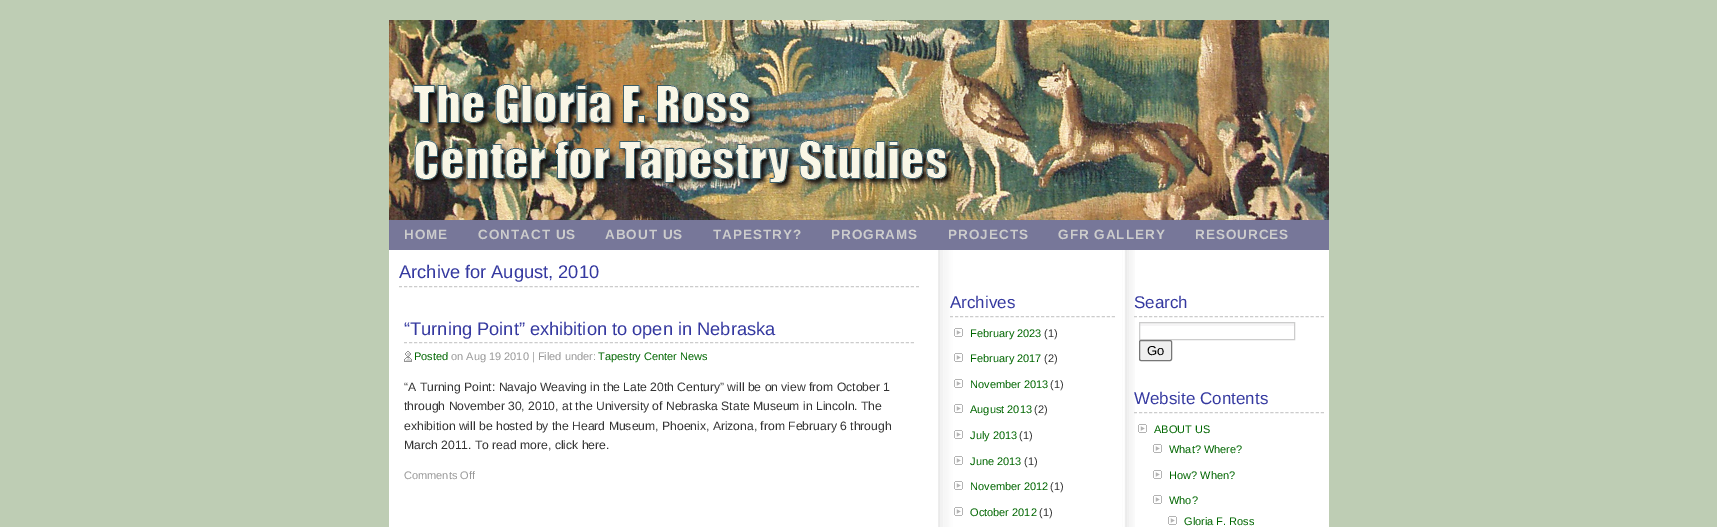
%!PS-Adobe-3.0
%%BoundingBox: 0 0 1717 527
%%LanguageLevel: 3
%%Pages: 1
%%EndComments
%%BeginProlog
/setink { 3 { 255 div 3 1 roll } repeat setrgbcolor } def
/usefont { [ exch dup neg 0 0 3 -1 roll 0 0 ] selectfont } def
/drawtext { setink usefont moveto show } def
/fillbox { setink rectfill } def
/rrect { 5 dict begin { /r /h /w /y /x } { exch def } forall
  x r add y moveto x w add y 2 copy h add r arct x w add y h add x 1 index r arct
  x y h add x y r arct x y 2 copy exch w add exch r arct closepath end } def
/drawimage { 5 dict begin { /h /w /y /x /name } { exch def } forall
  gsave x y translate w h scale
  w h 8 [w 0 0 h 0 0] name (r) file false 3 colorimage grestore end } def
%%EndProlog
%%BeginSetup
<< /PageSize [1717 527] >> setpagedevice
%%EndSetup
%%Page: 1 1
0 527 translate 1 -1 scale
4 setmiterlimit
0 0 1717 527 190 205 180 fillbox
389 250 940 277 255 255 255 fillbox
(assets/img1.rgb) 938 250 197 277 drawimage
(assets/img2.rgb) 389 20 940 200 drawimage
389 220 940 30 119 119 153 fillbox
/LiberationSans-Bold 13.5 usefont
204 204 204 setink
404 239 moveto 1 0 (HOME) ashow
478 239 moveto 1 0 (CONTACT US) ashow
605 239 moveto 1 0 (ABOUT US) ashow
713 239 moveto 1 0 (TAPESTRY?) ashow
831 239 moveto 1 0 (PROGRAMS) ashow
948 239 moveto 1 0 (PROJECTS) ashow
1058 239 moveto 1 0 (GFR GALLERY) ashow
1195 239 moveto 1 0 (RESOURCES) ashow
[3 2.02] 0 setdash
399 286.5 moveto 919 286.5 lineto stroke
(Archive for August, 2010) 399 278 /LiberationSans-Regular 18.25 53 57 160 drawtext
204 204 204 setink
404 342.5 moveto 914 342.5 lineto stroke
(“Turning Point” exhibition to open in Nebraska) 404 335 /LiberationSans-Regular 18.25 53 57 160 drawtext
(assets/img3.rgb) 404 351 8 11 drawimage
(Posted) 414 360 /LiberationSans-Regular 11 0 102 0 drawtext
(on Aug 19 2010 | Filed under:) 451 360 /LiberationSans-Regular 11 153 153 153 drawtext
(Tapestry Center News) 598 360 /LiberationSans-Regular 11 0 102 0 drawtext
(“A Turning Point: Navajo Weaving in the Late 20th Century” will be on view from October 1) 404 391 /LiberationSans-Regular 12.15 51 51 51 drawtext
(through November 30, 2010, at the University of Nebraska State Museum in Lincoln. The) 404 410 /LiberationSans-Regular 12.15 51 51 51 drawtext
(exhibition will be hosted by the Heard Museum, Phoenix, Arizona, from February 6 through) 404 430 /LiberationSans-Regular 12.15 51 51 51 drawtext
(March 2011. To read more, click here.) 404 449 /LiberationSans-Regular 12.15 51 51 51 drawtext
(Comments Off) 404 479 /LiberationSans-Regular 11 153 153 153 drawtext
204 204 204 setink
[3 2.06] 0 setdash
950 316.5 moveto 1115 316.5 lineto stroke
(Archives) 950 308 /LiberationSans-Regular 17 53 57 160 drawtext
(assets/img4.rgb) 954 328 9 9 drawimage
(February 2023) 970 337 /LiberationSans-Regular 11 0 102 0 drawtext
(\(1\)) 1044 337 /LiberationSans-Regular 11 51 51 51 drawtext
(assets/img4.rgb) 954 353 9 9 drawimage
(February 2017) 970 362 /LiberationSans-Regular 11 0 102 0 drawtext
(\(2\)) 1044 362 /LiberationSans-Regular 11 51 51 51 drawtext
(assets/img4.rgb) 954 379 9 9 drawimage
(November 2013) 970 388 /LiberationSans-Regular 11 0 102 0 drawtext
(\(1\)) 1050 388 /LiberationSans-Regular 11 51 51 51 drawtext
(assets/img4.rgb) 954 404 9 9 drawimage
(August 2013) 970 413 /LiberationSans-Regular 11 0 102 0 drawtext
(\(2\)) 1034 413 /LiberationSans-Regular 11 51 51 51 drawtext
(assets/img4.rgb) 954 430 9 9 drawimage
(July 2013) 970 439 /LiberationSans-Regular 11 0 102 0 drawtext
(\(1\)) 1019 439 /LiberationSans-Regular 11 51 51 51 drawtext
(assets/img4.rgb) 954 456 9 9 drawimage
(June 2013) 970 465 /LiberationSans-Regular 11 0 102 0 drawtext
(\(1\)) 1024 465 /LiberationSans-Regular 11 51 51 51 drawtext
(assets/img4.rgb) 954 481 9 9 drawimage
(November 2012) 970 490 /LiberationSans-Regular 11 0 102 0 drawtext
(\(1\)) 1050 490 /LiberationSans-Regular 11 51 51 51 drawtext
(assets/img4.rgb) 954 507 9 9 drawimage
(October 2012) 970 516 /LiberationSans-Regular 11 0 102 0 drawtext
(\(1\)) 1039 516 /LiberationSans-Regular 11 51 51 51 drawtext
204 204 204 setink
[3 2.05] 0 setdash
1134 316.5 moveto 1324 316.5 lineto stroke
(Search) 1134 308 /LiberationSans-Regular 17 53 57 160 drawtext
1139 323 156 3 246 245 246 fillbox
204 204 204 setink
[] 0 setdash
1139.5 322.5 155 17 rectstroke
239 239 239 setink
1139.5 340.5 32 20 1.5 rrect gsave fill grestore
118 118 118 setink
stroke
(Go) 1147 355 /LiberationSans-Regular 13 0 0 0 drawtext
204 204 204 setink
[3 2.05] 0 setdash
1134 412.5 moveto 1324 412.5 lineto stroke
(Website Contents) 1134 404 /LiberationSans-Regular 17 53 57 160 drawtext
(assets/img4.rgb) 1138 424 9 9 drawimage
(ABOUT US) 1154 433 /LiberationSans-Regular 11 0 102 0 drawtext
(assets/img4.rgb) 1153 444 9 9 drawimage
(What? Where?) 1169 453 /LiberationSans-Regular 11 0 102 0 drawtext
(assets/img4.rgb) 1153 470 9 9 drawimage
(How? When?) 1169 479 /LiberationSans-Regular 11 0 102 0 drawtext
(assets/img4.rgb) 1153 495 9 9 drawimage
(Who?) 1169 504 /LiberationSans-Regular 11 0 102 0 drawtext
(assets/img4.rgb) 1168 516 9 9 drawimage
(Gloria F. Ross) 1184 525 /LiberationSans-Regular 11 0 102 0 drawtext
showpage
%%EOF
